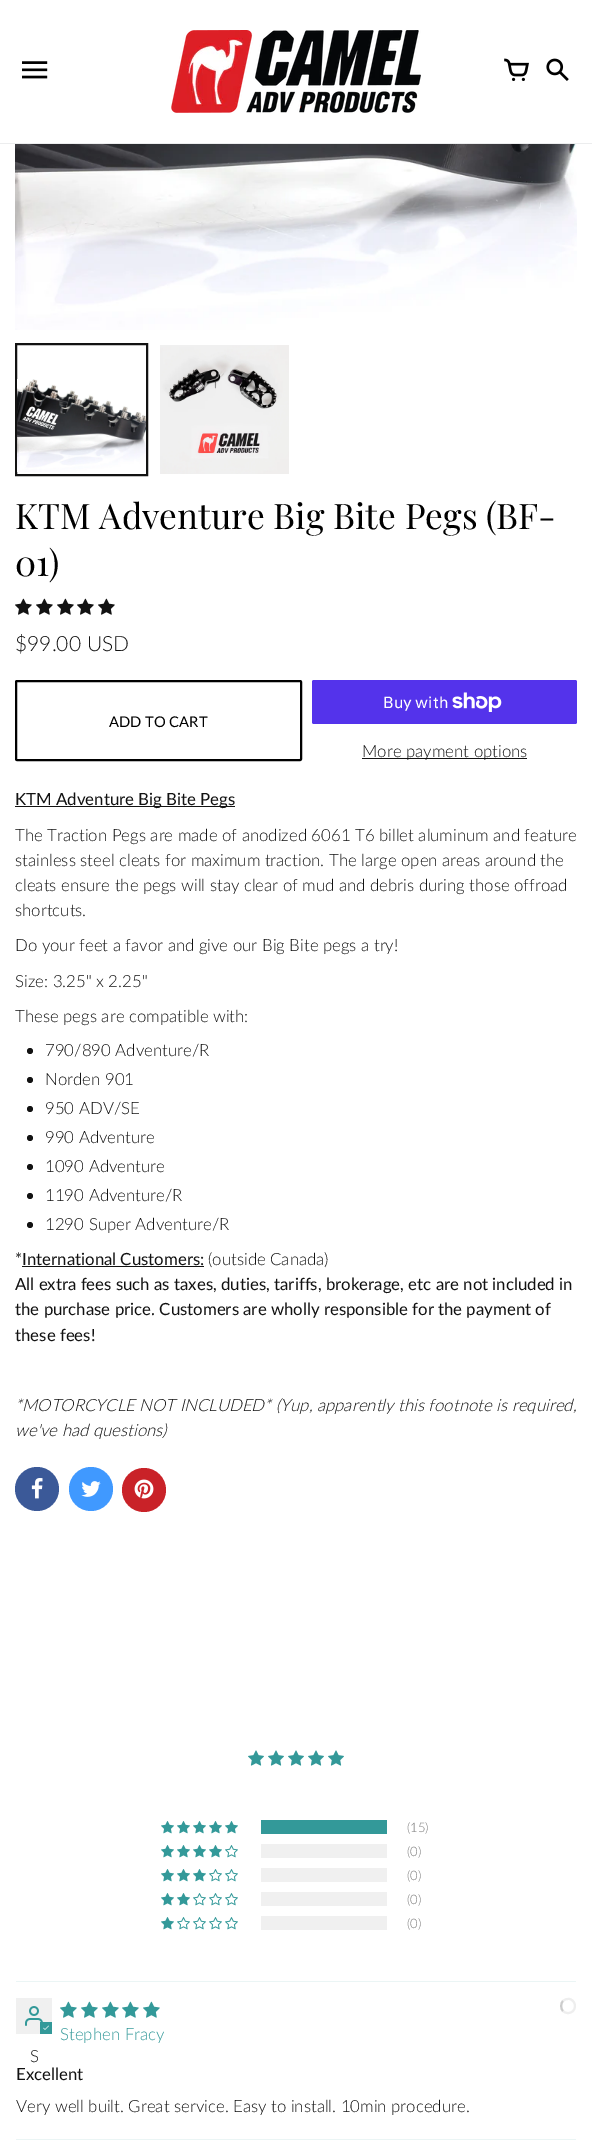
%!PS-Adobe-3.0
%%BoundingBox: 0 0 592 2156
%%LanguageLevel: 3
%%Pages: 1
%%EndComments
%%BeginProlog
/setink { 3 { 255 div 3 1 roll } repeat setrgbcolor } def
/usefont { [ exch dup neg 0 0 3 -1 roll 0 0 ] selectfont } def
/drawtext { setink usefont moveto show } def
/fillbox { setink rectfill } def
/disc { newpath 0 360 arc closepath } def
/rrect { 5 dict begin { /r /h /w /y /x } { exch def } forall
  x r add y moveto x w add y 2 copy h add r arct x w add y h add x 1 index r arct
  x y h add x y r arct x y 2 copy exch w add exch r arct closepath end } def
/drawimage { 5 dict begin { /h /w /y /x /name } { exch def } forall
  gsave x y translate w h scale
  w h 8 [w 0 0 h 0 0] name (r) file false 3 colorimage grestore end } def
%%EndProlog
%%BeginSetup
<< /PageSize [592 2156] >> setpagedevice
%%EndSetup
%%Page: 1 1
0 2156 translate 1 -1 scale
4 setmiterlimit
0 0 592 2156 255 255 255 fillbox
0 143 592 1 236 237 238 fillbox
(assets/img1.rgb) 22 61 26 18 drawimage
(assets/img2.rgb) 171 30 250 83 drawimage
(assets/img3.rgb) 504 58 25 23 drawimage
(assets/img4.rgb) 546 58 23 23 drawimage
(assets/img5.rgb) 15 144 562 186 drawimage
18 18 18 setink
2 setlinewidth
16 344 131 131 rectstroke
(assets/img6.rgb) 17 379 129 93 drawimage
(assets/img7.rgb) 160 345 129 129 drawimage
(KTM Adventure Big Bite Pegs \(BF-) 15 529 /PlayfairDisplay-Regular 35.25 0 0 0 drawtext
(01\)) 15 576 /PlayfairDisplay-Regular 35.25 0 0 0 drawtext
(assets/img8.rgb) 15 598 17 17 drawimage
(assets/img8.rgb) 36 598 17 17 drawimage
(assets/img8.rgb) 57 598 17 17 drawimage
(assets/img8.rgb) 77 598 17 17 drawimage
(assets/img8.rgb) 98 598 17 17 drawimage
($99.00 USD) 15 651 /Lato-Light 21 18 18 18 drawtext
0 0 0 setink
16 681 285 79 1 rrect stroke
(ADD TO CART) 109 727 /Lato-Regular 14.75 0 0 0 drawtext
84 51 235 setink
312 680 265 44 2 rrect fill
(Buy with) 383 708 /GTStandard-Regular 16 255 255 255 drawtext
(assets/img9.rgb) 452 692 50 20 drawimage
362 758 165 1 18 18 18 fillbox
(More payment options) 362 757 /Lato-Light 16.8 18 18 18 drawtext
15 806 220 1 18 18 18 fillbox
(KTM Adventure Big Bite Pegs) 15 805 /Lato-Regular 16.8 18 18 18 drawtext
(The Traction Pegs are made of anodized 6061 T6 billet aluminum and feature) 15 841 /Lato-Light 16.8 18 18 18 drawtext
(stainless steel cleats for maximum traction. The large open areas around the) 15 866 /Lato-Light 16.8 18 18 18 drawtext
(cleats ensure the pegs will stay clear of mud and debris during those offroad) 15 891 /Lato-Light 16.8 18 18 18 drawtext
(shortcuts.) 15 916 /Lato-Light 16.8 18 18 18 drawtext
(Do your feet a favor and give our Big Bite pegs a try!) 15 951 /Lato-Light 16.8 18 18 18 drawtext
(Size: 3.25" x 2.25") 15 987 /Lato-Light 16.8 18 18 18 drawtext
(These pegs are compatible with:) 15 1022 /Lato-Light 16.8 18 18 18 drawtext
30 1051 3 disc fill
(790/890 Adventure/R) 45 1056 /Lato-Light 16.8 18 18 18 drawtext
30 1080 3 disc fill
(Norden 901) 45 1085 /Lato-Light 16.8 18 18 18 drawtext
30 1109 3 disc fill
(950 ADV/SE) 45 1114 /Lato-Light 16.8 18 18 18 drawtext
30 1138 3 disc fill
(990 Adventure) 45 1143 /Lato-Light 16.8 18 18 18 drawtext
30 1167 3 disc fill
(1090 Adventure) 45 1172 /Lato-Light 16.8 18 18 18 drawtext
30 1196 3 disc fill
(1190 Adventure/R) 45 1201 /Lato-Light 16.8 18 18 18 drawtext
30 1225 3 disc fill
(1290 Super Adventure/R) 45 1230 /Lato-Light 16.8 18 18 18 drawtext
(*International Customers:) 15 1265 /Lato-Regular 16.8 18 18 18 drawtext
22 1266 182 1 18 18 18 fillbox
(\(outside Canada\)) 208 1265 /Lato-Light 16.8 18 18 18 drawtext
(All extra fees such as taxes, duties, tariffs, brokerage, etc are not included in) 15 1290 /Lato-Regular 16.8 18 18 18 drawtext
(the purchase price. Customers are wholly responsible for the payment of) 15 1315 /Lato-Regular 16.8 18 18 18 drawtext
(these fees!) 15 1341 /Lato-Regular 16.8 18 18 18 drawtext
(*MOTORCYCLE NOT INCLUDED* \(Yup, apparently this footnote is required,) 15 1411 /Lato-LightItalic 16.8 18 18 18 drawtext
(we've had questions\)) 15 1436 /Lato-LightItalic 16.8 18 18 18 drawtext
59 89 152 setink
37 1489 22 disc fill
(assets/img10.rgb) 31 1478 12 21 drawimage
64 153 255 setink
91 1489 22 disc fill
(assets/img11.rgb) 81 1481 20 16 drawimage
201 34 40 setink
144 1490 22 disc fill
(assets/img12.rgb) 134 1479 20 20 drawimage
(assets/img13.rgb) 248 1750 16 16 drawimage
(assets/img13.rgb) 268 1750 16 16 drawimage
(assets/img13.rgb) 288 1750 16 16 drawimage
(assets/img13.rgb) 308 1750 16 16 drawimage
(assets/img13.rgb) 328 1750 16 16 drawimage
(assets/img14.rgb) 161 1821 13 13 drawimage
(assets/img14.rgb) 177 1821 13 13 drawimage
(assets/img14.rgb) 193 1821 13 13 drawimage
(assets/img14.rgb) 209 1821 13 13 drawimage
(assets/img14.rgb) 225 1821 13 13 drawimage
261 1820 126 14 51 153 153 fillbox
(\(15\)) 407 1832 /Lato-Light 13 123 123 123 drawtext
(assets/img14.rgb) 161 1845 13 13 drawimage
(assets/img14.rgb) 177 1845 13 13 drawimage
(assets/img14.rgb) 193 1845 13 13 drawimage
(assets/img14.rgb) 209 1845 13 13 drawimage
(assets/img15.rgb) 225 1845 13 13 drawimage
261 1844 126 14 240 240 240 fillbox
(\(0\)) 407 1856 /Lato-Light 13 123 123 123 drawtext
(assets/img14.rgb) 161 1869 13 13 drawimage
(assets/img14.rgb) 177 1869 13 13 drawimage
(assets/img14.rgb) 193 1869 13 13 drawimage
(assets/img15.rgb) 209 1869 13 13 drawimage
(assets/img15.rgb) 225 1869 13 13 drawimage
261 1868 126 14 240 240 240 fillbox
(\(0\)) 407 1880 /Lato-Light 13 123 123 123 drawtext
(assets/img14.rgb) 161 1893 13 13 drawimage
(assets/img14.rgb) 177 1893 13 13 drawimage
(assets/img15.rgb) 193 1893 13 13 drawimage
(assets/img15.rgb) 209 1893 13 13 drawimage
(assets/img15.rgb) 225 1893 13 13 drawimage
261 1892 126 14 240 240 240 fillbox
(\(0\)) 407 1904 /Lato-Light 13 123 123 123 drawtext
(assets/img14.rgb) 161 1917 13 13 drawimage
(assets/img15.rgb) 177 1917 13 13 drawimage
(assets/img15.rgb) 193 1917 13 13 drawimage
(assets/img15.rgb) 209 1917 13 13 drawimage
(assets/img15.rgb) 225 1917 13 13 drawimage
261 1916 126 14 240 240 240 fillbox
(\(0\)) 407 1928 /Lato-Light 13 123 123 123 drawtext
16 1981 560 1 235 245 245 fillbox
(assets/img16.rgb) 60 2001 17 17 drawimage
(assets/img16.rgb) 81 2001 17 17 drawimage
(assets/img16.rgb) 102 2001 17 17 drawimage
(assets/img16.rgb) 122 2001 17 17 drawimage
(assets/img16.rgb) 143 2001 17 17 drawimage
238 238 238 setink
563 2001 moveto 564.5 1999.5 567 1998.5 569.5 1999 curveto 577.5 2001 576.5 2013 568 2013 curveto 566 2013 564.5 2012.5 563 2011 curveto stroke
204 204 204 setink
563 2011 moveto 560.5 2008.5 560.5 2003.5 563 2001 curveto stroke
(Stephen Fracy) 60 2040 /Lato-Light 16.8 51 153 153 drawtext
16 1998 36 36 240 240 240 fillbox
(assets/img17.rgb) 25 2006 18 20 drawimage
40 2022 12 12 51 153 153 fillbox
(assets/img18.rgb) 43 2025 6 5 drawimage
(S) 30 2062 /Lato-Light 16.8 18 18 18 drawtext
(Excellent) 16 2080 /Lato-Regular 16.8 18 18 18 drawtext
(Very well built. Great service. Easy to install. 10min procedure.) 16 2112 /Lato-Light 16.8 18 18 18 drawtext
16 2139 560 1 235 245 245 fillbox
showpage
%%EOF
